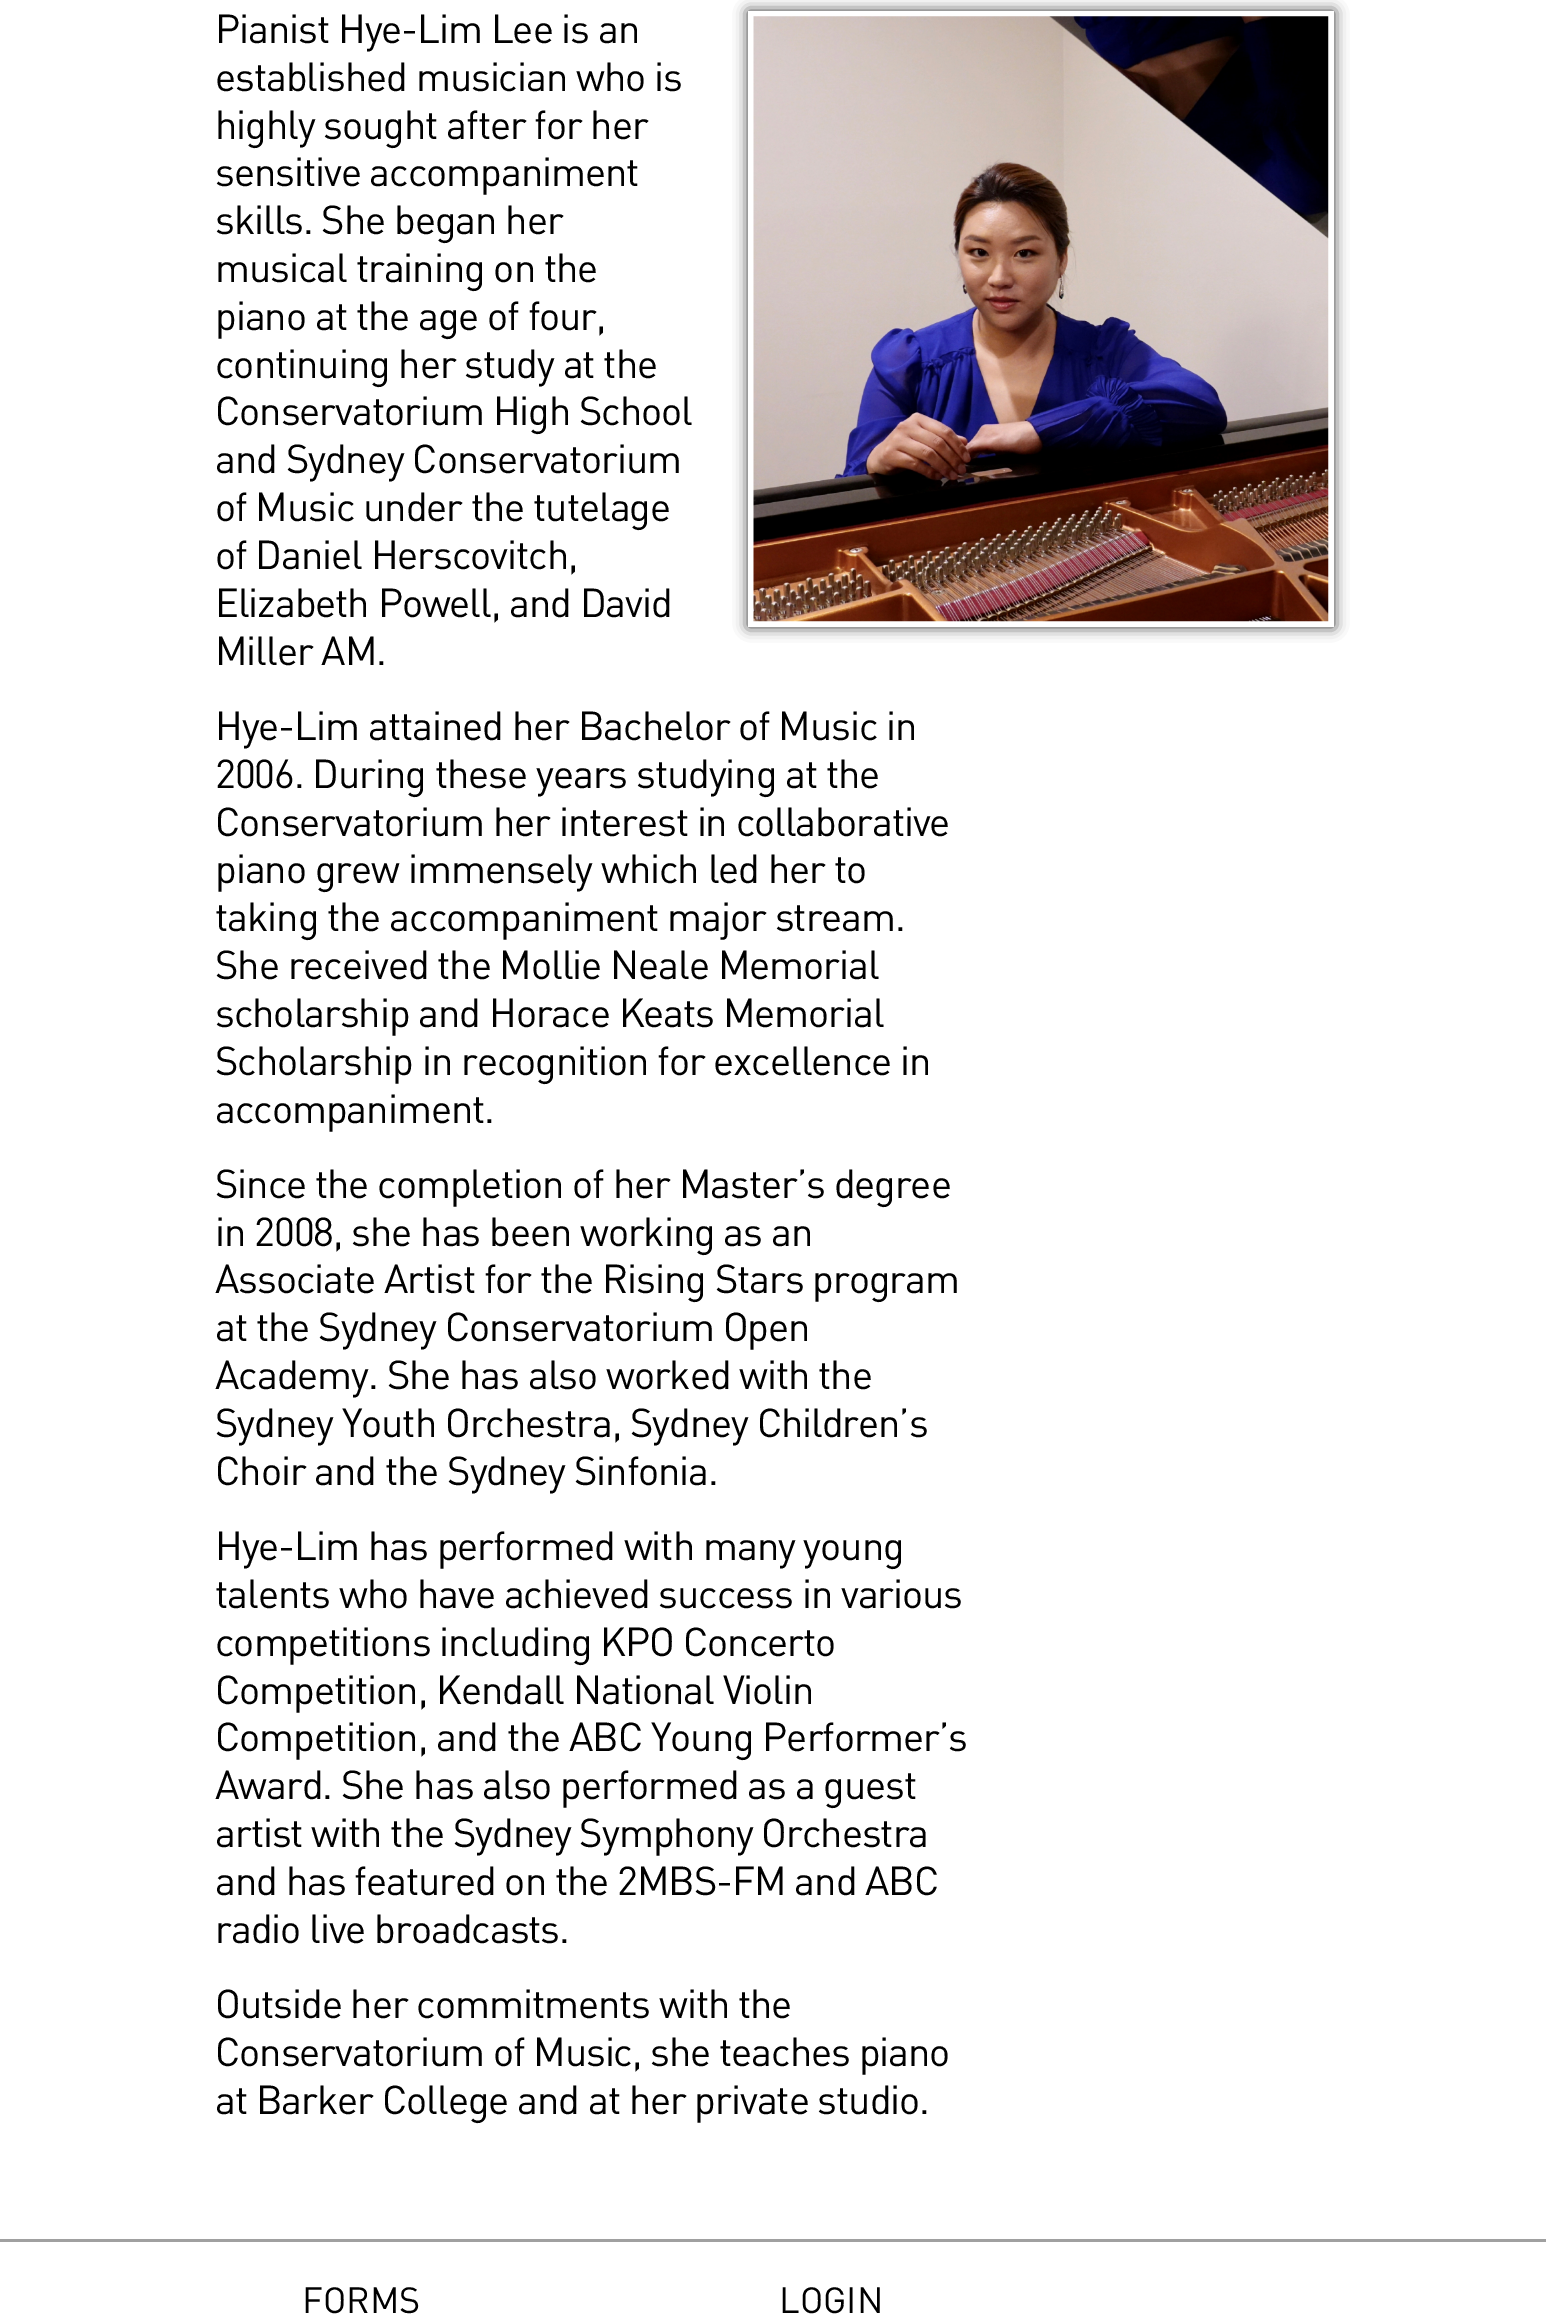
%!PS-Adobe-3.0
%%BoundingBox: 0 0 1546 2319
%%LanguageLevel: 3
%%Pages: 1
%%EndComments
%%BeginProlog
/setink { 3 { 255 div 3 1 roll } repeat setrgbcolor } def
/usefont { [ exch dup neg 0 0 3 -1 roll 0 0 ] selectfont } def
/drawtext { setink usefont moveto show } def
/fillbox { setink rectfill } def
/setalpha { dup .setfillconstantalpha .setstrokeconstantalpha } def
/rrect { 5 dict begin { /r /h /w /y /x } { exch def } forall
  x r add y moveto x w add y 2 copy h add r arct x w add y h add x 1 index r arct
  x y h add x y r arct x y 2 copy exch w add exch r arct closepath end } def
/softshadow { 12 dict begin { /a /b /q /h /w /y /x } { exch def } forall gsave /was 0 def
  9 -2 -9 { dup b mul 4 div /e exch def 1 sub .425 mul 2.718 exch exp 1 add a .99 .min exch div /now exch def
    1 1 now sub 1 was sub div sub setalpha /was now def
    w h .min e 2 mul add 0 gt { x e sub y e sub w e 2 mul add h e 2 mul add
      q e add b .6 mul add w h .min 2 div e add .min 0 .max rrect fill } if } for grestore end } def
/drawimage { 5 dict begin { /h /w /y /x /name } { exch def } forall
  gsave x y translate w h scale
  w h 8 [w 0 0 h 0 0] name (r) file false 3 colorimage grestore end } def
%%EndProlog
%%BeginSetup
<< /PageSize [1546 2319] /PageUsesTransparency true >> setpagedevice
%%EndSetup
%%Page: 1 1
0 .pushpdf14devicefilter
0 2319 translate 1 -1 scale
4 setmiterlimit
0 0 1546 2319 255 255 255 fillbox
/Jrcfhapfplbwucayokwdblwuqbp-Regular 39.9 usefont
0 0 0 setink
215 43 moveto -1.1 0 (Pianist Hye-Lim Lee is an) ashow
215 91 moveto -1.1 0 (established musician who is) ashow
215 139 moveto -1.1 0 (highly sought after for her) ashow
215 186 moveto -1.1 0 (sensitive accompaniment) ashow
215 234 moveto -1.1 0 (skills. She began her) ashow
215 282 moveto -1.1 0 (musical training on the) ashow
215 330 moveto -1.1 0 (piano at the age of four,) ashow
215 378 moveto -1.1 0 (continuing her study at the) ashow
215 425 moveto -1.1 0 (Conservatorium High School) ashow
215 473 moveto -1.1 0 (and Sydney Conservatorium) ashow
215 521 moveto -1.1 0 (of Music under the tutelage) ashow
215 569 moveto -1.1 0 (of Daniel Herscovitch,) ashow
215 617 moveto -1.1 0 (Elizabeth Powell, and David) ashow
215 665 moveto -1.1 0 (Miller AM.) ashow
gsave
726 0 moveto 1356 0 lineto 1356 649 lineto 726 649 lineto closepath 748 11 moveto 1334 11 lineto 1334 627 lineto 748 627 lineto closepath eoclip newpath
51 51 51 setink
748 11 586 616 0 7 1 softshadow
grestore
(assets/img1.rgb) 753 16 576 606 drawimage
215 740 moveto -1.1 0 (Hye-Lim attained her Bachelor of Music in) ashow
215 788 moveto -1.1 0 (2006. During these years studying at the) ashow
215 836 moveto -1.1 0 (Conservatorium her interest in collaborative) ashow
215 883 moveto -1.1 0 (piano grew immensely which led her to) ashow
215 931 moveto -1.1 0 (taking the accompaniment major stream.) ashow
215 979 moveto -1.1 0 (She received the Mollie Neale Memorial) ashow
215 1027 moveto -1.1 0 (scholarship and Horace Keats Memorial) ashow
215 1075 moveto -1.1 0 (Scholarship in recognition for excellence in) ashow
215 1123 moveto -1.1 0 (accompaniment.) ashow
215 1198 moveto -1.1 0 (Since the completion of her Master’s degree) ashow
215 1246 moveto -1.1 0 (in 2008, she has been working as an) ashow
215 1293 moveto -1.1 0 (Associate Artist for the Rising Stars program) ashow
215 1341 moveto -1.1 0 (at the Sydney Conservatorium Open) ashow
215 1389 moveto -1.1 0 (Academy. She has also worked with the) ashow
215 1437 moveto -1.1 0 (Sydney Youth Orchestra, Sydney Children’s) ashow
215 1485 moveto -1.1 0 (Choir and the Sydney Sinfonia.) ashow
215 1560 moveto -1.1 0 (Hye-Lim has performed with many young) ashow
215 1608 moveto -1.1 0 (talents who have achieved success in various) ashow
215 1656 moveto -1.1 0 (competitions including KPO Concerto) ashow
215 1704 moveto -1.1 0 (Competition, Kendall National Violin) ashow
215 1751 moveto -1.1 0 (Competition, and the ABC Young Performer’s) ashow
215 1799 moveto -1.1 0 (Award. She has also performed as a guest) ashow
215 1847 moveto -1.1 0 (artist with the Sydney Symphony Orchestra) ashow
215 1895 moveto -1.1 0 (and has featured on the 2MBS-FM and ABC) ashow
215 1943 moveto -1.1 0 (radio live broadcasts.) ashow
215 2018 moveto -1.1 0 (Outside her commitments with the) ashow
215 2066 moveto -1.1 0 (Conservatorium of Music, she teaches piano) ashow
215 2114 moveto -1.1 0 (at Barker College and at her private studio.) ashow
0 2239 1546 3 160 160 160 fillbox
(FORMS) 302 2313 /Jrcfhapfplbwucayokwdblwuqbp-Regular 36 0 0 0 drawtext
(LOGIN) 779 2313 /Jrcfhapfplbwucayokwdblwuqbp-Regular 36 0 0 0 drawtext
.poppdf14devicefilter showpage
%%EOF
